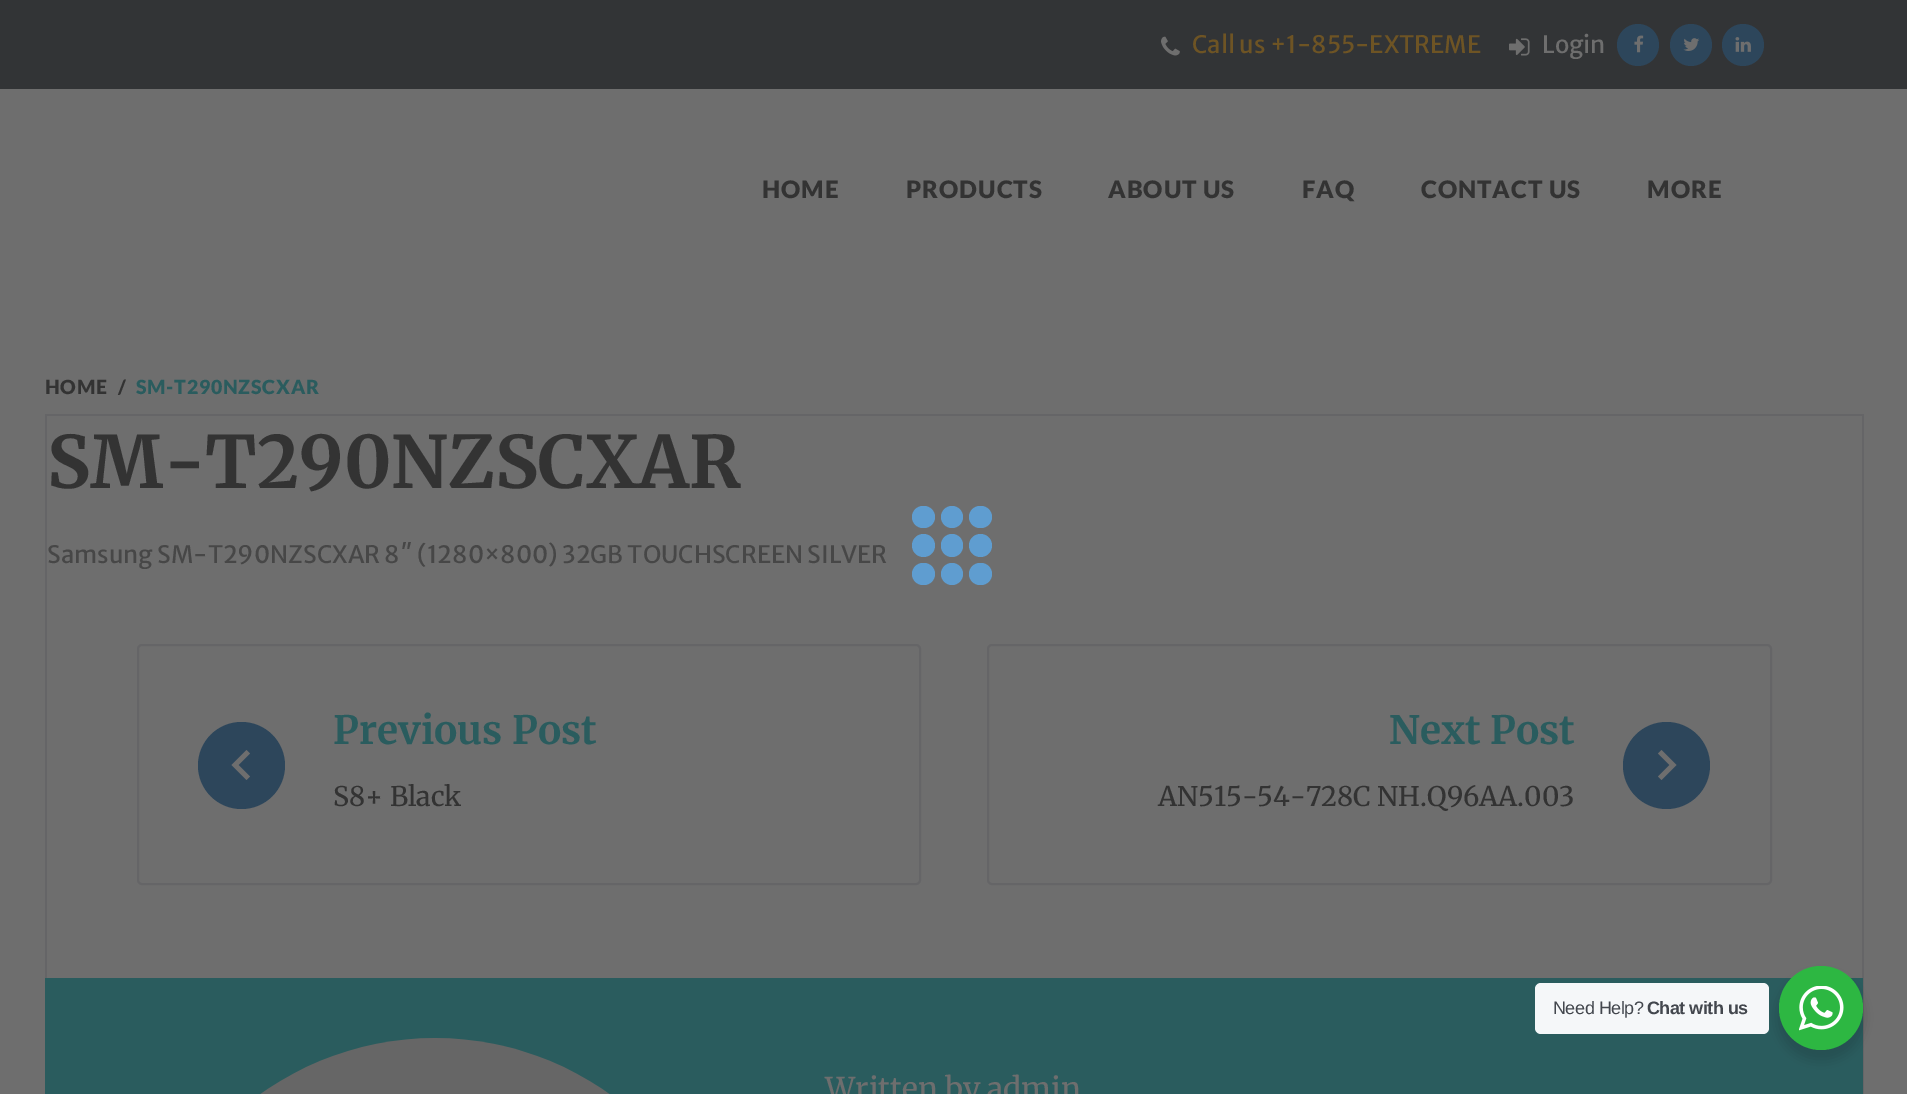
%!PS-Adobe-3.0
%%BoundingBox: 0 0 1907 1094
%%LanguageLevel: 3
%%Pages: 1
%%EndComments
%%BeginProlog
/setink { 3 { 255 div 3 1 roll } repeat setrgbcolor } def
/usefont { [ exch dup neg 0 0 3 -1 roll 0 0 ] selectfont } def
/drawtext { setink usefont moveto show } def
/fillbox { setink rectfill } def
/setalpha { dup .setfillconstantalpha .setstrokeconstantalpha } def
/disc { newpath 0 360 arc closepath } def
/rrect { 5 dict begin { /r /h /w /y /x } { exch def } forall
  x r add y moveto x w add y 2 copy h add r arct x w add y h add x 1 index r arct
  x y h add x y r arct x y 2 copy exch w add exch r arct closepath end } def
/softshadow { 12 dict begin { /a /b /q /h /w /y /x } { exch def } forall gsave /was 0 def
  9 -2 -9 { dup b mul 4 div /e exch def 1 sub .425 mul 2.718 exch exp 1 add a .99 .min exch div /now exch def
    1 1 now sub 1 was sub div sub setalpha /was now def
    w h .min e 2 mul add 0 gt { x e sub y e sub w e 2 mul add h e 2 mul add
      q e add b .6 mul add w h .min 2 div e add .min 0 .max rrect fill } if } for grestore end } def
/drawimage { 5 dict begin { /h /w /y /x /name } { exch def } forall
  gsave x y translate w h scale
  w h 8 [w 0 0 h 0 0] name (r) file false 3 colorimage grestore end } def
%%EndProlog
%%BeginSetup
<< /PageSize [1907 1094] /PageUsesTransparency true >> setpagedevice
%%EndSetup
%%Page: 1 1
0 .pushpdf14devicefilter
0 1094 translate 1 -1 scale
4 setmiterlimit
0 0 1907 1094 110 110 110 fillbox
0 0 1907 89 50 52 54 fillbox
(assets/img1.rgb) 1161 36 19 20 drawimage
(Call us +1-855-EXTREME) 1192 53 /MerriweatherSans-Regular 24 110 84 36 drawtext
(assets/img2.rgb) 1509 38 21 18 drawimage
(Login) 1542 53 /MerriweatherSans-Regular 24 110 110 110 drawtext
45 70 91 setink
1638 45 21 disc fill
(assets/img3.rgb) 1634 35 10 18 drawimage
1691 45 21 disc fill
(assets/img4.rgb) 1683 38 17 13 drawimage
1743 45 21 disc fill
(assets/img5.rgb) 1735 37 16 15 drawimage
/Lato-Black 24 usefont
51 51 51 setink
762 198 moveto 1 0 (HOME) ashow
906 198 moveto 1 0 (PRODUCTS) ashow
1108 198 moveto 1 0 (ABOUT US) ashow
1302 198 moveto 1 0 (FAQ) ashow
1421 198 moveto 1 0 (CONTACT US) ashow
1647 198 moveto 1 0 (MORE) ashow
/Lato-Black 19.5 usefont
45 394 moveto 0.75 0 (HOME) ashow
118 394 moveto 0.75 0 (/) ashow
42 92 94 setink
136 394 moveto 0.75 0 (SM-T290NZSCXAR) ashow
1862 414 2 680 101 101 103 fillbox
45 414 2 564 101 101 103 fillbox
47 414 1815 2 101 101 103 fillbox
(SM-T290NZSCXAR) 47 488 /Merriweather-Bold 72 51 51 51 drawtext
(Samsung SM-T290NZSCXAR 8″ \(1280×800\) 32GB TOUCHSCREEN SILVER) 47 563 /MerriweatherSans-Regular 24 71 71 71 drawtext
101 101 103 setink
2 setlinewidth
138 645 782 239 4 rrect stroke
45 70 91 setink
241.5 765.5 43.5 disc fill
110 110 110 setink
250 753.5 moveto 238.5 765 lineto 250 776.5 lineto 246.5 780 lineto 231.5 765 lineto 246.5 750 lineto closepath fill
(Previous Post) 333 744 /Merriweather-Bold 39 42 92 94 drawtext
(S8+ Black) 333 806 /Merriweather-Medium 27 51 51 51 drawtext
101 101 103 setink
988 645 783 239 4 rrect stroke
(Next Post) 1389 744 /Merriweather-Bold 39 42 92 94 drawtext
45 70 91 setink
1666.5 765.5 43.5 disc fill
110 110 110 setink
1661.5 750 moveto 1676.5 765 lineto 1661.5 780 lineto 1658 776.5 lineto 1669.5 765 lineto 1658 753.5 lineto closepath fill
(AN515-54-728C NH.Q96AA.003) 1158 806 /Merriweather-Medium 27 51 51 51 drawtext
45 978 1818 116 42 92 94 fillbox
(assets/img6.rgb) 260 1038 350 56 drawimage
(Written by admin) 825 1099 /Merriweather-Medium 30 110 110 110 drawtext
95 157 208 setink
912 506 23 22 11 rrect fill
952 517 11 disc fill
969 506 23 22 11 rrect fill
923.5 545.5 11.5 disc fill
941 534 22 23 11 rrect fill
980.5 545.5 11.5 disc fill
912 563 23 22 11 rrect fill
952 574 11 disc fill
969 563 23 22 11 rrect fill
0 0 0 setink
1776 972 90 90 45 6 0.14 softshadow
245 247 249 setink
1535 983 234 51 6 rrect fill
/LiberationSans-Regular 18 usefont
67 71 78 setink
1553 1014 moveto -0.5 0 (Need Help?) ashow
/LiberationSans-Bold 18 usefont
1647 1014 moveto -0.5 0 (Chat with us) ashow
45 183 66 setink
1821 1008 42 disc fill
(assets/img7.rgb) 1799 986 45 45 drawimage
.poppdf14devicefilter showpage
%%EOF
